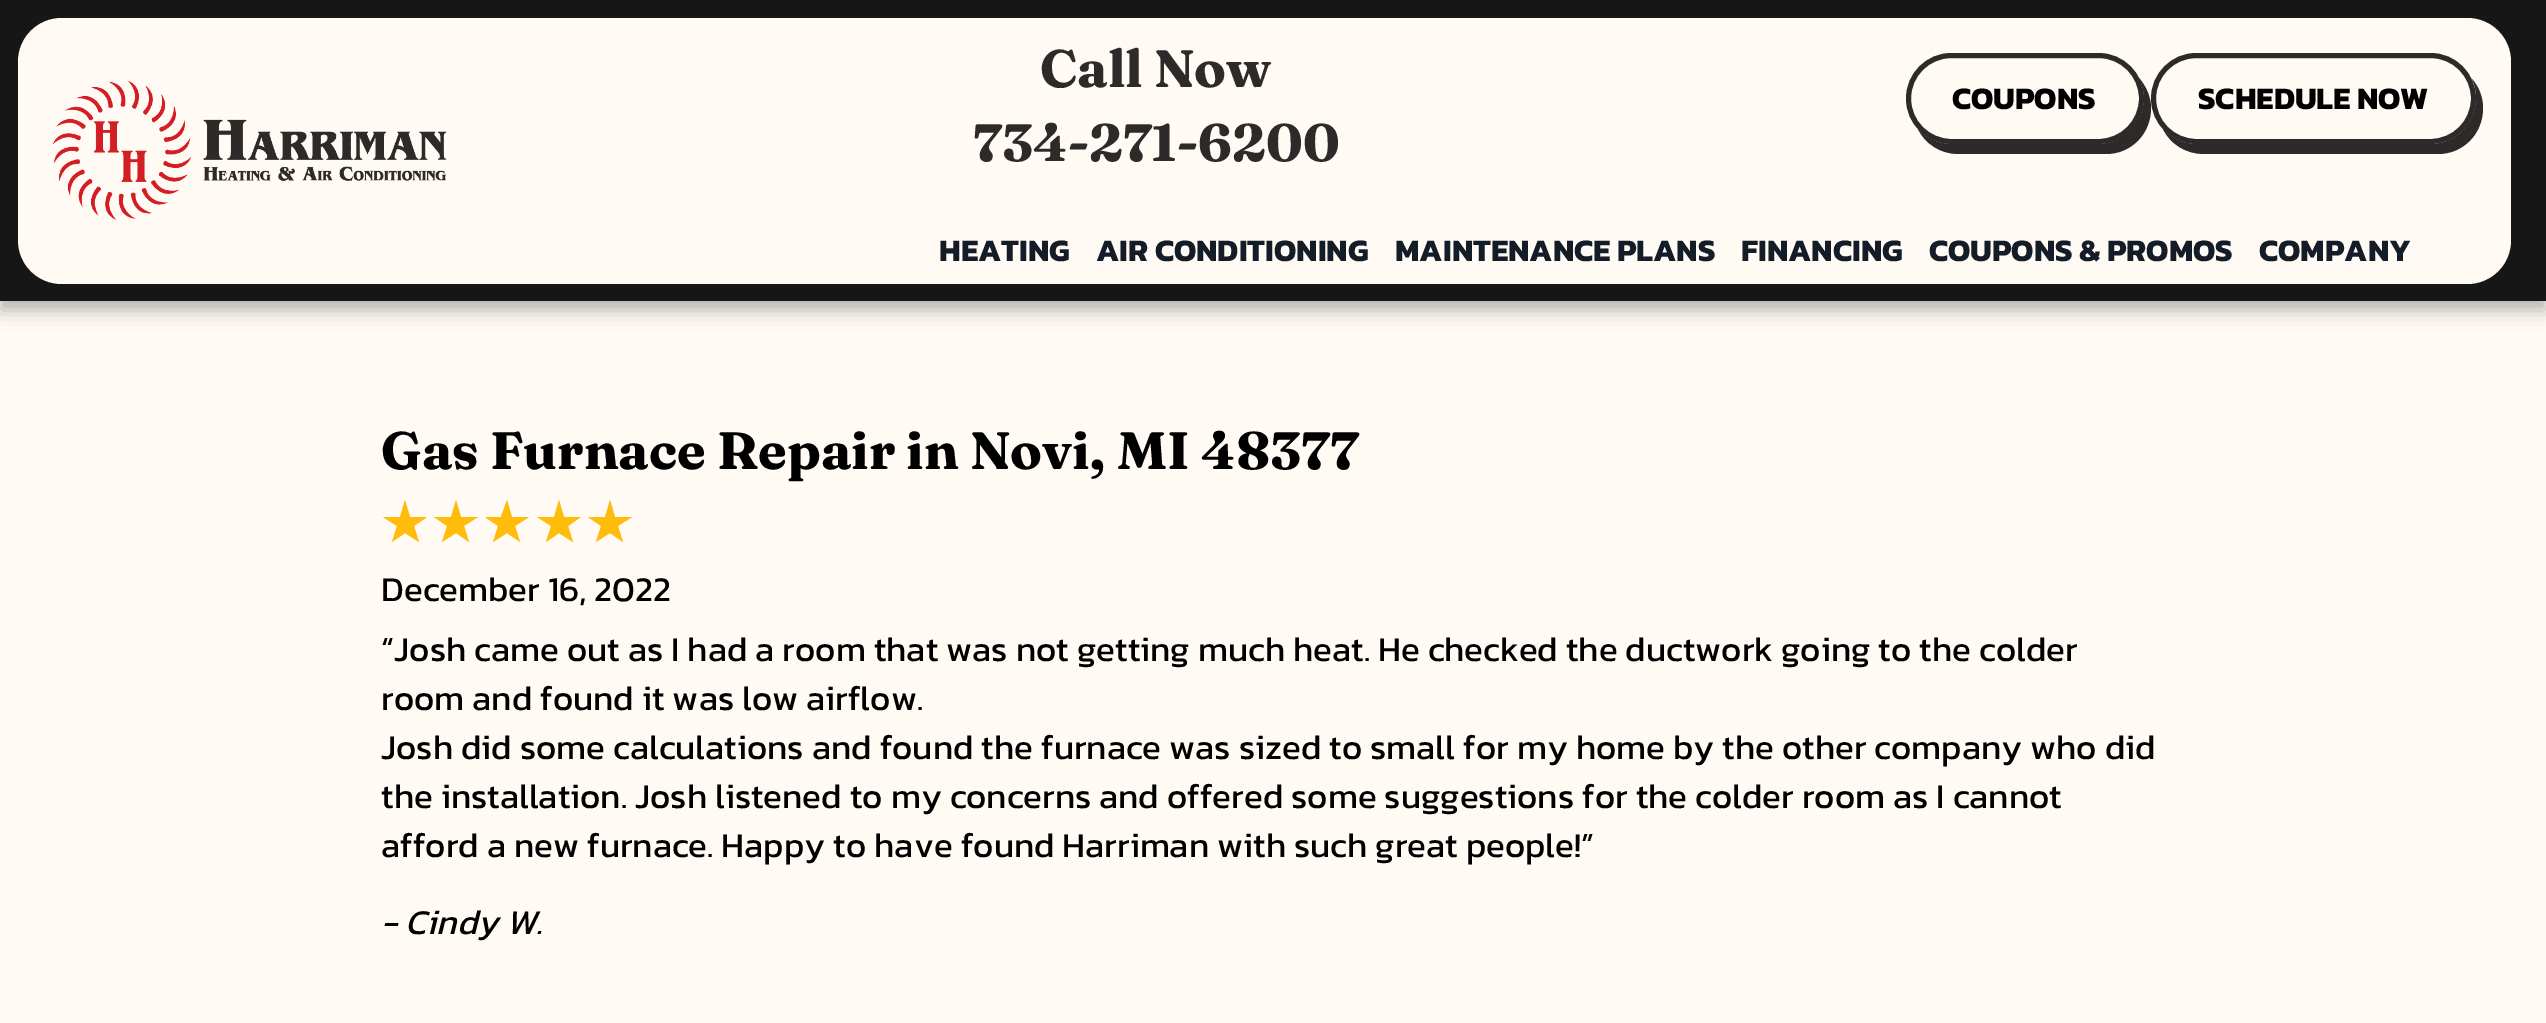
%!PS-Adobe-3.0
%%BoundingBox: 0 0 2546 1023
%%LanguageLevel: 3
%%Pages: 1
%%EndComments
%%BeginProlog
/setink { 3 { 255 div 3 1 roll } repeat setrgbcolor } def
/usefont { [ exch dup neg 0 0 3 -1 roll 0 0 ] selectfont } def
/drawtext { setink usefont moveto show } def
/fillbox { setink rectfill } def
/setalpha { dup .setfillconstantalpha .setstrokeconstantalpha } def
/rrect { 5 dict begin { /r /h /w /y /x } { exch def } forall
  x r add y moveto x w add y 2 copy h add r arct x w add y h add x 1 index r arct
  x y h add x y r arct x y 2 copy exch w add exch r arct closepath end } def
/softshadow { 12 dict begin { /a /b /q /h /w /y /x } { exch def } forall gsave /was 0 def
  9 -2 -9 { dup b mul 4 div /e exch def 1 sub .425 mul 2.718 exch exp 1 add a .99 .min exch div /now exch def
    1 1 now sub 1 was sub div sub setalpha /was now def
    w h .min e 2 mul add 0 gt { x e sub y e sub w e 2 mul add h e 2 mul add
      q e add b .6 mul add w h .min 2 div e add .min 0 .max rrect fill } if } for grestore end } def
/drawimage { 5 dict begin { /h /w /y /x /name } { exch def } forall
  gsave x y translate w h scale
  w h 8 [w 0 0 h 0 0] name (r) file false 3 colorimage grestore end } def
%%EndProlog
%%BeginSetup
<< /PageSize [2546 1023] /PageUsesTransparency true >> setpagedevice
%%EndSetup
%%Page: 1 1
0 .pushpdf14devicefilter
0 1023 translate 1 -1 scale
4 setmiterlimit
0 0 2546 1023 255 251 244 fillbox
0 0 0 setink
0 9 2546 301 0 9 0.3 softshadow
0 0 2546 301 22 22 22 fillbox
255 251 244 setink
62 18 moveto 481 18 lineto 481 284 lineto 62 284 lineto 37.5 284 18 264.5 18 240 curveto 18 62 lineto 18 37.5 37.5 18 62 18 curveto closepath fill
(assets/img1.rgb) 52 80 395 140 drawimage
481 18 moveto 2467 18 lineto 2491.5 18 2511 37.5 2511 62 curveto 2511 240 lineto 2511 264.5 2491.5 284 2467 284 curveto 481 284 lineto closepath fill
(Call Now) 1040 87 /Fraunces-Bold 52.5 45 42 41 drawtext
(734-271-6200) 973 161 /Fraunces-Bold 52.5 45 42 41 drawtext
1918 129 moveto 1925 144 1941 154 1958 154 curveto 2106 154 lineto 2131 154 2151 134 2151 108 curveto 2151 97 2146 86 2139 78 curveto 2142 84 2144 91 2144 98 curveto 2144 123 2123 144 2098 144 curveto 1951 144 lineto 1938 144 1926 138 1918 129 curveto closepath fill
255 251 244 setink
1908.5 55.5 233 86 43 rrect gsave fill grestore
45 42 41 setink
5 setlinewidth
stroke
(COUPONS) 1952 109 /Kanit-Bold 31.5 0 0 0 drawtext
45 42 41 setink
2163 129 moveto 2170 144 2186 154 2204 154 curveto 2438 154 lineto 2463 154 2483 134 2483 108 curveto 2483 97 2479 87 2472 79 curveto 2475 85 2476 91 2476 98 curveto 2476 123 2456 144 2431 144 curveto 2196 144 lineto 2183 144 2171 138 2163 129 curveto closepath fill
255 251 244 setink
2153.5 55.5 320 86 43 rrect gsave fill grestore
45 42 41 setink
stroke
(SCHEDULE NOW) 2198 109 /Kanit-Bold 31.5 0 0 0 drawtext
(HEATING) 939 261 /Kanit-Bold 31.5 20 28 39 drawtext
(AIR CONDITIONING) 1096 261 /Kanit-Bold 31.5 20 28 39 drawtext
(MAINTENANCE PLANS) 1395 261 /Kanit-Bold 31.5 20 28 39 drawtext
(FINANCING) 1741 261 /Kanit-Bold 31.5 20 28 39 drawtext
(COUPONS & PROMOS) 1929 261 /Kanit-Bold 31.5 20 28 39 drawtext
(COMPANY) 2259 261 /Kanit-Bold 31.5 20 28 39 drawtext
(Gas Furnace Repair in Novi, MI 48377) 381 469 /Fraunces-Bold 52.5 0 0 0 drawtext
255 188 11 setink
405 500 moveto 410 517 lineto 405 500 lineto 410 517 lineto 427 517 lineto 414 526 lineto 419 542 lineto 405 533 lineto 392 542 lineto 397 526 lineto 383 517 lineto 400 517 lineto closepath fill
456 500 moveto 461 517 lineto 456 500 lineto 461 517 lineto 478 517 lineto 464 526 lineto 469 542 lineto 456 533 lineto 442 542 lineto 447 526 lineto 434 517 lineto 451 517 lineto closepath fill
507 500 moveto 512 517 lineto 507 500 lineto 512 517 lineto 529 517 lineto 515 526 lineto 520 542 lineto 507 533 lineto 493 542 lineto 498 526 lineto 485 517 lineto 501 517 lineto closepath fill
559 500 moveto 564 517 lineto 559 500 lineto 564 517 lineto 581 517 lineto 568 526 lineto 573 542 lineto 559 533 lineto 546 542 lineto 551 526 lineto 537 517 lineto 554 517 lineto closepath fill
610 500 moveto 615 517 lineto 610 500 lineto 615 517 lineto 632 517 lineto 618 526 lineto 623 542 lineto 610 533 lineto 596 542 lineto 601 526 lineto 588 517 lineto 605 517 lineto closepath fill
(December 16, 2022) 381 601 /Kanit-Regular 35 0 0 0 drawtext
(“Josh came out as I had a room that was not getting much heat. He checked the ductwork going to the colder) 381 661 /Kanit-Regular 35 0 0 0 drawtext
(room and found it was low airflow.) 381 710 /Kanit-Regular 35 0 0 0 drawtext
(Josh did some calculations and found the furnace was sized to small for my home by the other company who did) 381 759 /Kanit-Regular 35 0 0 0 drawtext
(the installation. Josh listened to my concerns and offered some suggestions for the colder room as I cannot) 381 808 /Kanit-Regular 35 0 0 0 drawtext
(afford a new furnace. Happy to have found Harriman with such great people!”) 381 857 /Kanit-Regular 35 0 0 0 drawtext
(- Cindy W.) 381 934 /Kanit-Italic 35 0 0 0 drawtext
.poppdf14devicefilter showpage
%%EOF
